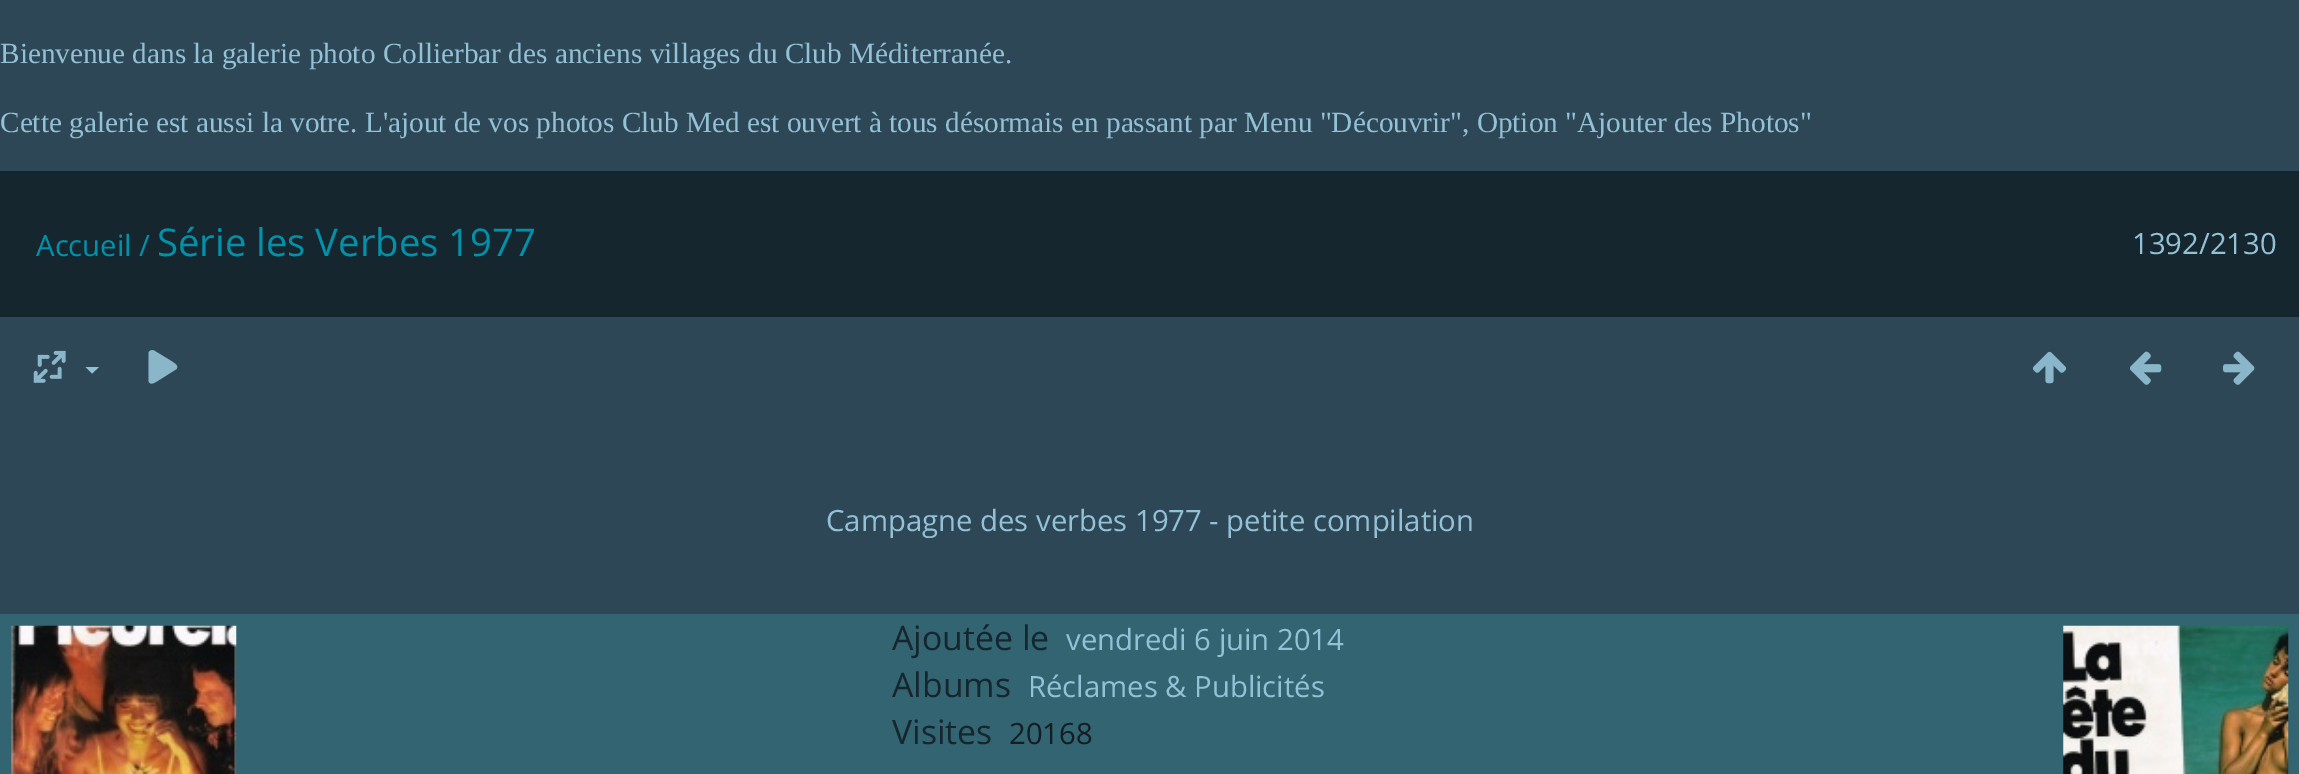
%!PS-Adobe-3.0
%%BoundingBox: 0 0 2299 774
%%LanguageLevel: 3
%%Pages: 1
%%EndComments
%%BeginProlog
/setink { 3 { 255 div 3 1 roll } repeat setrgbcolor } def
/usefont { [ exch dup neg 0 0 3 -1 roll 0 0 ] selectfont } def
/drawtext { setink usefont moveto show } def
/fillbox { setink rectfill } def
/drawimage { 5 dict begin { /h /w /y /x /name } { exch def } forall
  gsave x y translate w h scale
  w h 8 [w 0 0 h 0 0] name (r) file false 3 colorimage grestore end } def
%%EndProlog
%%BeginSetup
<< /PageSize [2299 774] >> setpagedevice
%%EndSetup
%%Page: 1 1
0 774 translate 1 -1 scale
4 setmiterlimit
0 0 2299 774 46 71 86 fillbox
(Bienvenue dans la galerie photo Collierbar des anciens villages du Club Méditerranée.) 0 63 /LiberationSerif-Regular 29.25 147 194 214 drawtext
(Cette galerie est aussi la votre. L'ajout de vos photos Club Med est ouvert à tous désormais en passant par Menu "Découvrir", Option "Ajouter des Photos") 0 132 /LiberationSerif-Regular 29.25 147 194 214 drawtext
0 171 2299 146 22 38 46 fillbox
(Accueil /) 36 256 /OpenSans-Regular 29.25 3 145 170 drawtext
(Série les Verbes 1977) 157 256 /OpenSans-Regular 38.25 3 145 170 drawtext
(1392/2130) 2132 254 /OpenSans-Regular 29.25 147 194 214 drawtext
(assets/img1.rgb) 33 350 33 33 drawimage
85.5 367 moveto 99 367 lineto 92 373.5 lineto closepath fill
137 182 201 setink
154 350.5 moveto 152 349.5 149 350.5 148.5 353 curveto 148.5 381 lineto 150 386 155 382.5 157.5 381 curveto 176.5 369 lineto 179 365.5 174 363 172 361.5 curveto closepath fill
(assets/img2.rgb) 2032 351 35 33 drawimage
(assets/img3.rgb) 2129 351 33 34 drawimage
(assets/img4.rgb) 2223 351 32 34 drawimage
(Campagne des verbes 1977 - petite compilation) 826 531 /OpenSans-Regular 29.25 147 194 214 drawtext
0 614 2299 160 50 100 113 fillbox
(Ajoutée le) 892 650 /OpenSans-Regular 33.75 22 38 46 drawtext
(vendredi 6 juin 2014) 1066 650 /OpenSans-Regular 29.25 147 194 214 drawtext
(Albums) 892 697 /OpenSans-Regular 33.75 22 38 46 drawtext
(Réclames & Publicités) 1028 697 /OpenSans-Regular 29.25 147 194 214 drawtext
(Visites) 892 744 /OpenSans-Regular 33.75 22 38 46 drawtext
(20168) 1009 744 /OpenSans-Regular 29.25 19 29 35 drawtext
(assets/img5.rgb) 11 625 226 149 drawimage
(assets/img6.rgb) 2063 625 226 149 drawimage
showpage
%%EOF
